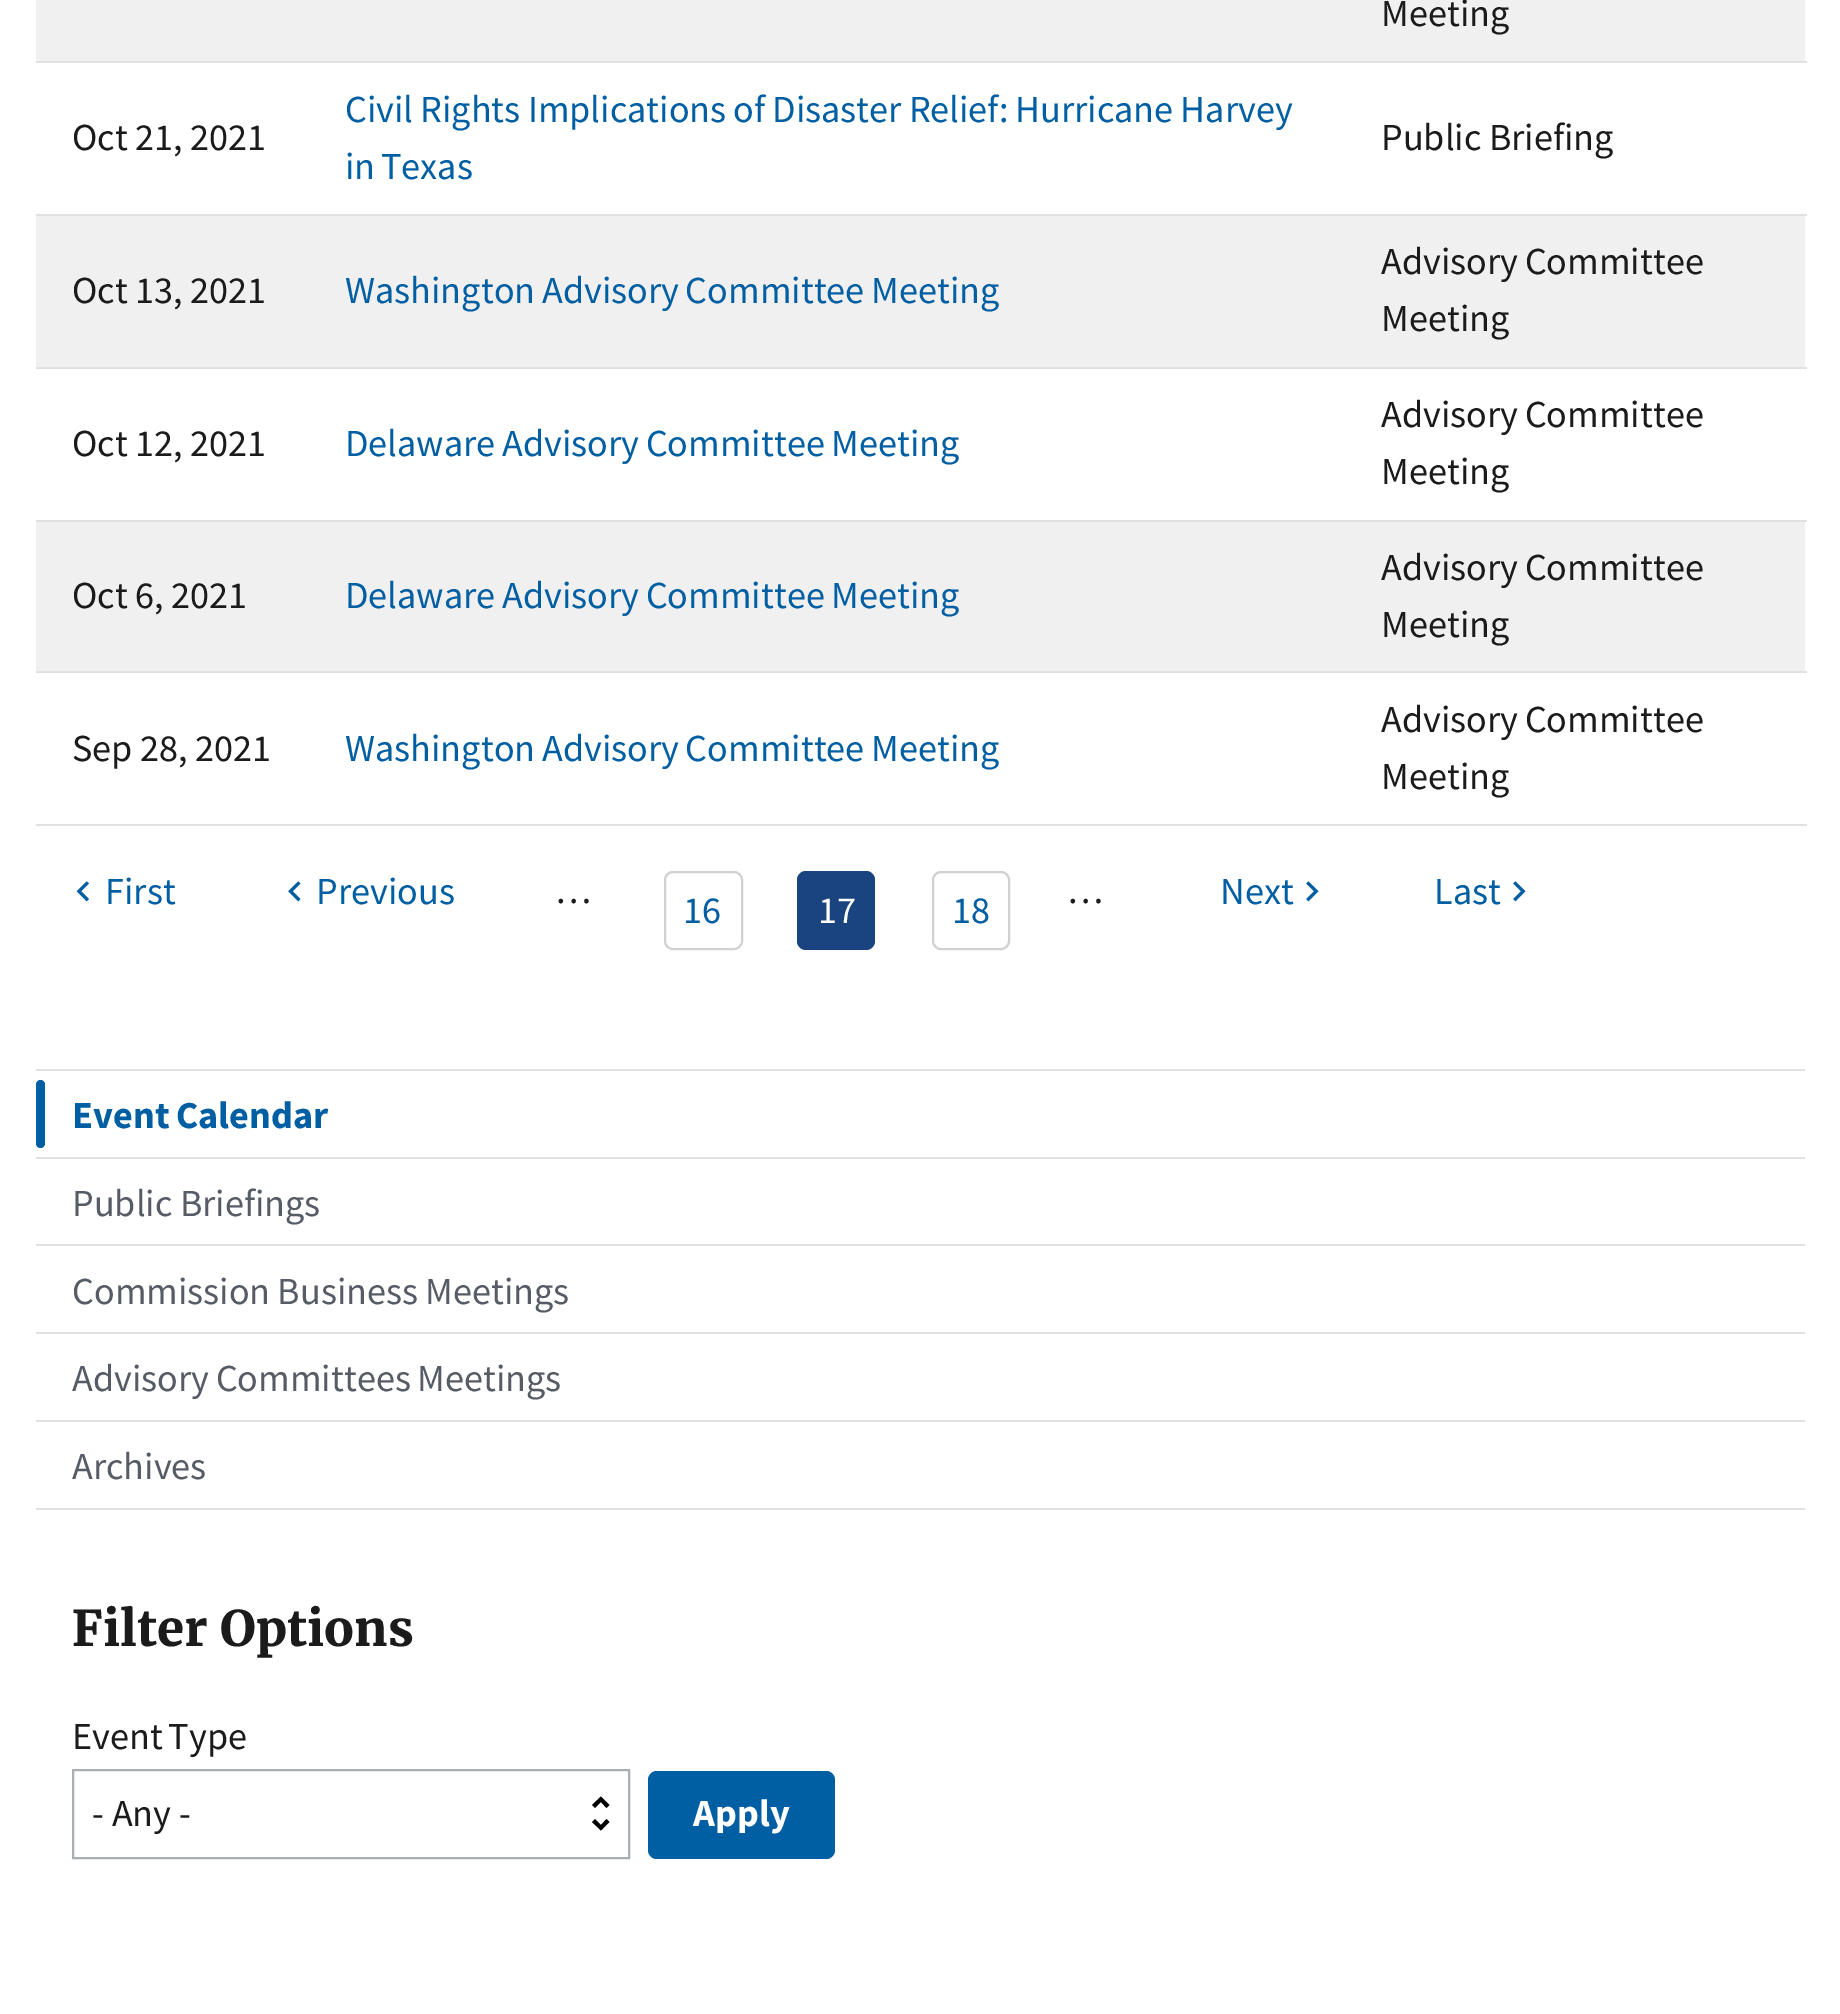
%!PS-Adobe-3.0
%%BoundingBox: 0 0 1840 2014
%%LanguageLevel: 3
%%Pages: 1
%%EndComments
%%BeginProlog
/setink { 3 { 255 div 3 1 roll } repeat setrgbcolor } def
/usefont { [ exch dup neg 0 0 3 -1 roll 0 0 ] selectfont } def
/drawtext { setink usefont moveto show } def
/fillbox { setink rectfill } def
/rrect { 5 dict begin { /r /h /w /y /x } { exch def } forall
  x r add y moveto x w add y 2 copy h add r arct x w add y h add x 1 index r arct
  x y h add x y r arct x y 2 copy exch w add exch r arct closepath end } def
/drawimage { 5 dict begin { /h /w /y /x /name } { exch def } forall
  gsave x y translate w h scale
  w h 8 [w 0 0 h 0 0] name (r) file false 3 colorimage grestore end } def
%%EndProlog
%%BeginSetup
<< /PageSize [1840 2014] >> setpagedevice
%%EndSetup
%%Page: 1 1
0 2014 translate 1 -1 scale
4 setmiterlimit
0 0 1840 2014 255 255 255 fillbox
36 0 1769 61 240 240 240 fillbox
(Meeting) 1381 26 /SourceSansPro-Regular 38.2 27 27 27 drawtext
(Oct 21, 2021) 72 150 /SourceSansPro-Regular 38.2 27 27 27 drawtext
0 94 162 setink
345 122 moveto -0.5 0 32 (Civil Rights Implications of Disaster Relief: Hurricane Harvey) widthshow
345 179 moveto -2 0 32 (in Texas) widthshow
36 61 1771 2 223 225 226 fillbox
(Public Briefing) 1381 150 /SourceSansPro-Regular 38.2 27 27 27 drawtext
36 216 1769 151 240 240 240 fillbox
(Oct 13, 2021) 72 303 /SourceSansPro-Regular 38.2 27 27 27 drawtext
0 94 162 setink
345 303 moveto -1 0 32 (Washington Advisory Committee Meeting) widthshow
36 214 1771 2 223 225 226 fillbox
27 27 27 setink
1381 274 moveto -1 0 32 (Advisory Committee) widthshow
(Meeting) 1381 331 /SourceSansPro-Regular 38.2 27 27 27 drawtext
(Oct 12, 2021) 72 456 /SourceSansPro-Regular 38.2 27 27 27 drawtext
0 94 162 setink
345 456 moveto -1 0 32 (Delaware Advisory Committee Meeting) widthshow
36 367 1771 2 223 225 226 fillbox
27 27 27 setink
1381 427 moveto -1 0 32 (Advisory Committee) widthshow
(Meeting) 1381 484 /SourceSansPro-Regular 38.2 27 27 27 drawtext
36 522 1769 149 240 240 240 fillbox
(Oct 6, 2021) 72 608 /SourceSansPro-Regular 38.2 27 27 27 drawtext
0 94 162 setink
345 608 moveto -1 0 32 (Delaware Advisory Committee Meeting) widthshow
36 520 1771 2 223 225 226 fillbox
27 27 27 setink
1381 580 moveto -1 0 32 (Advisory Committee) widthshow
(Meeting) 1381 637 /SourceSansPro-Regular 38.2 27 27 27 drawtext
(Sep 28, 2021) 72 761 /SourceSansPro-Regular 38.2 27 27 27 drawtext
0 94 162 setink
345 761 moveto -1 0 32 (Washington Advisory Committee Meeting) widthshow
36 671 1771 2 223 225 226 fillbox
36 824 1771 2 223 225 226 fillbox
27 27 27 setink
1381 732 moveto -1 0 32 (Advisory Committee) widthshow
(Meeting) 1381 789 /SourceSansPro-Regular 38.2 27 27 27 drawtext
(assets/img1.rgb) 76 881 13 21 drawimage
(First) 105 904 /SourceSansPro-Regular 38.2 0 94 162 drawtext
(assets/img2.rgb) 288 881 13 21 drawimage
(Previous) 316 904 /SourceSansPro-Regular 38.2 0 94 162 drawtext
(…) 555 903 /SourceSansPro-Regular 38.2 27 27 27 drawtext
209 209 209 setink
2 setlinewidth
665 872 77 77 8 rrect stroke
(16) 683 923 /SourceSansPro-Regular 38.2 0 94 162 drawtext
26 68 128 setink
797 871 78 79 9 rrect fill
(17) 818 923 /SourceSansPro-Regular 38.2 255 255 255 drawtext
209 209 209 setink
933 872 76 77 8 rrect stroke
(18) 952 923 /SourceSansPro-Regular 38.2 0 94 162 drawtext
(…) 1067 903 /SourceSansPro-Regular 38.2 27 27 27 drawtext
(Next) 1220 904 /SourceSansPro-Regular 38.2 0 94 162 drawtext
(assets/img3.rgb) 1306 881 13 21 drawimage
(Last) 1434 904 /SourceSansPro-Regular 38.2 0 94 162 drawtext
(assets/img4.rgb) 1513 881 13 21 drawimage
36 1508 1769 2 223 225 226 fillbox
36 1069 1769 2 223 225 226 fillbox
0 94 162 setink
36 1080 9 68 4.5 rrect fill
/SourceSansPro-Bold 38.2 usefont
72 1128 moveto -1 0 32 (Event Calendar) widthshow
36 1157 1769 2 223 225 226 fillbox
(Public Briefings) 72 1216 /SourceSansPro-Regular 38.2 86 92 101 drawtext
36 1244 1769 2 223 225 226 fillbox
86 92 101 setink
72 1304 moveto -0.5 0 32 (Commission Business Meetings) widthshow
36 1332 1769 2 223 225 226 fillbox
86 92 101 setink
72 1391 moveto -1 0 32 (Advisory Committees Meetings) widthshow
36 1420 1769 2 223 225 226 fillbox
(Archives) 72 1479 /SourceSansPro-Regular 38.2 86 92 101 drawtext
(Filter Options) 72 1646 /Merriweather-Bold 49 27 27 27 drawtext
/SourceSansPro-Regular 38.2 usefont
72 1749 moveto -2 0 32 (Event Type) widthshow
0 0 0 setink
601 1802 moveto 606.5 1808 lineto 609.5 1805 lineto 601 1796.5 lineto 592 1805 lineto 595 1808 lineto closepath 601 1825 moveto 595 1819 lineto 592 1822 lineto 601 1830.5 lineto 609.5 1822 lineto 606.5 1819 lineto closepath fill
169 175 178 setink
73 1770 556 88 rectstroke
(- Any -) 92 1826 /SourceSansPro-Regular 38.2 27 27 27 drawtext
0 94 162 setink
648 1771 187 88 9 rrect fill
(Apply) 693 1826 /SourceSansPro-Bold 38.2 255 255 255 drawtext
showpage
%%EOF
